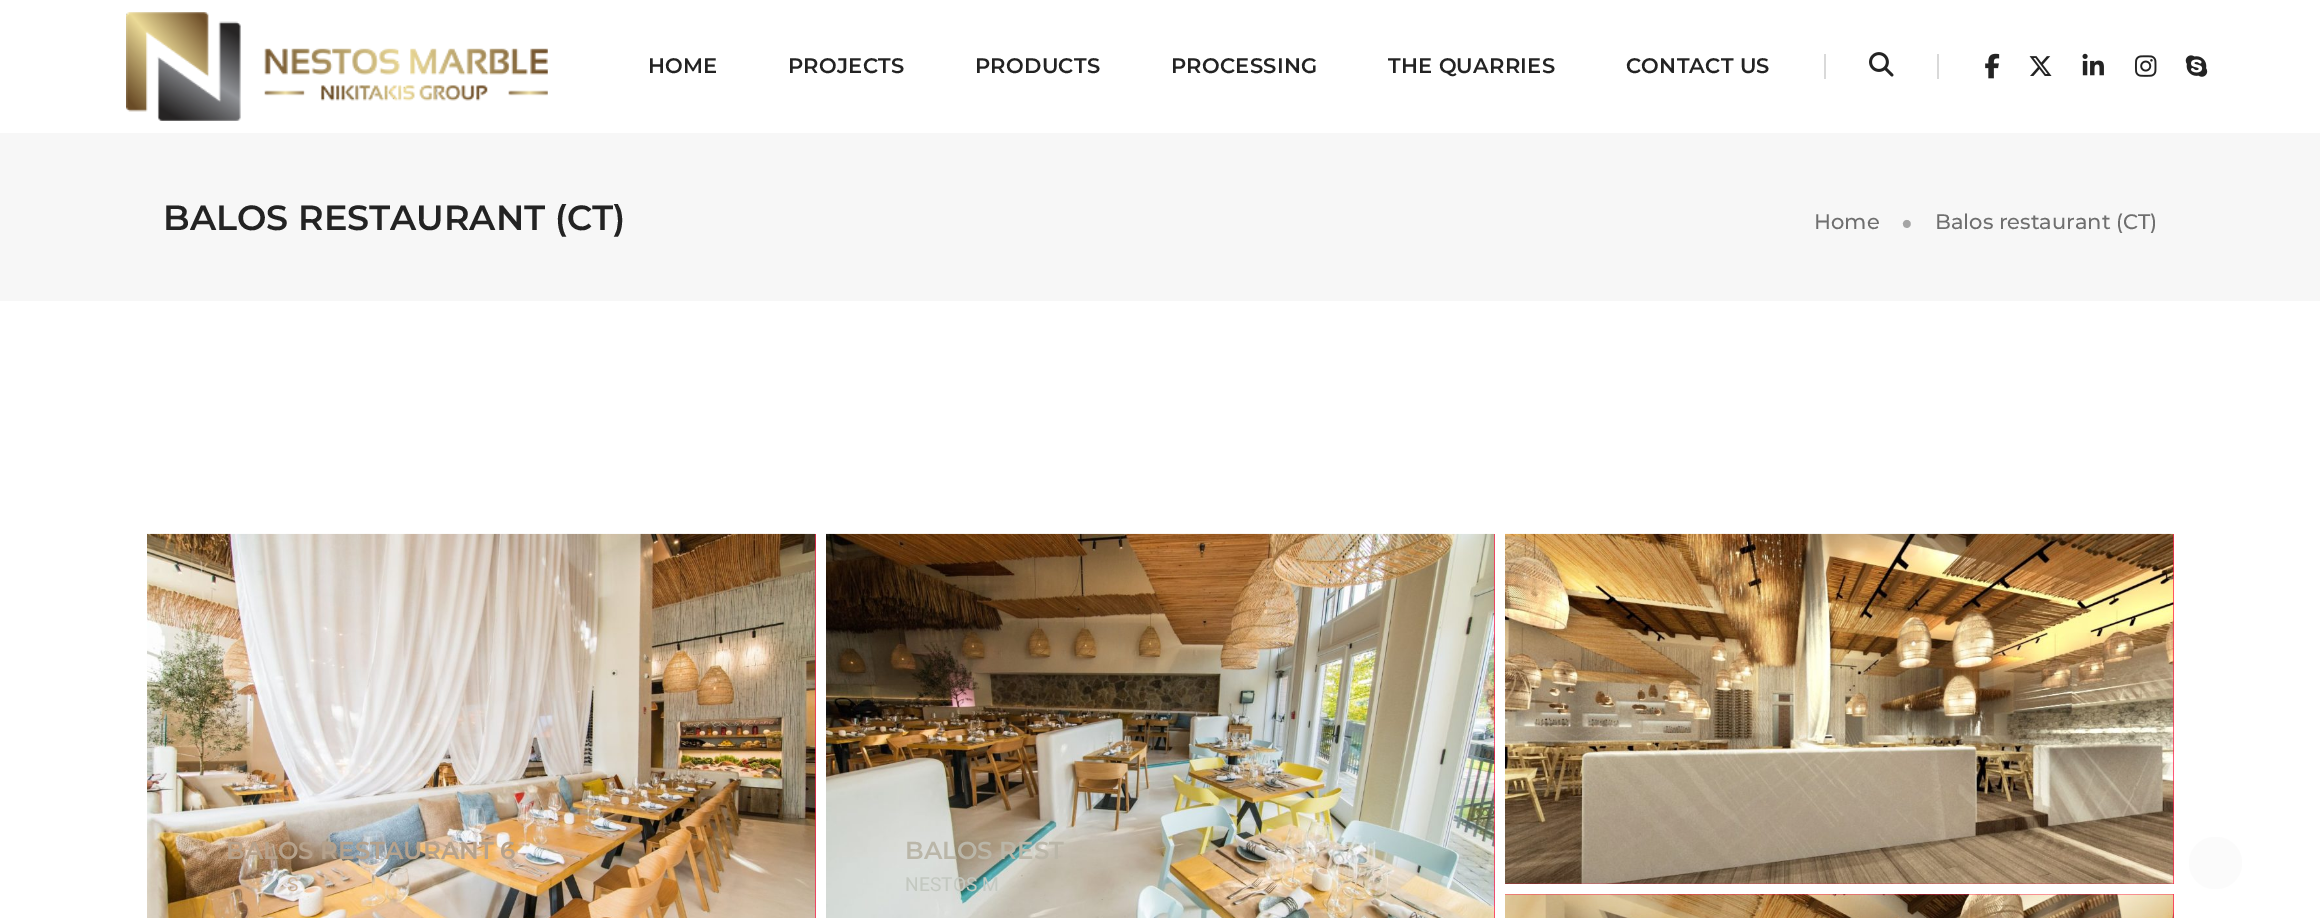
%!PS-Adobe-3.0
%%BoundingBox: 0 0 2320 918
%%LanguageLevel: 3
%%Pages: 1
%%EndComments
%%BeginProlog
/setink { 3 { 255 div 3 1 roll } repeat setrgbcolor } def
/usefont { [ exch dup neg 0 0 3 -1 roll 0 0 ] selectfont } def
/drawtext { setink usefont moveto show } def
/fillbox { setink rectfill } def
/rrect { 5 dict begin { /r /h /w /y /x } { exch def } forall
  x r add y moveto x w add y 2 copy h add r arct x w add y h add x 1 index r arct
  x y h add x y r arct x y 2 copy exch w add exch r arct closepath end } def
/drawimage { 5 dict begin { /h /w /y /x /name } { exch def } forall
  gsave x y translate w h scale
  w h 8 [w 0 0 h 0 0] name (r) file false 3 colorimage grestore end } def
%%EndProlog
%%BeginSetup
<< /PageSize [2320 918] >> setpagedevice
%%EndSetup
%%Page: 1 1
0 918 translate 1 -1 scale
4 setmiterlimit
0 0 2320 918 255 255 255 fillbox
(assets/img1.rgb) 126 12 422 109 drawimage
/Montserrat-SemiBold 21 usefont
35 35 35 setink
648 73 moveto 0.25 0 (HOME) ashow
788 73 moveto 0.25 0 (PROJECTS) ashow
975 73 moveto 0.25 0 (PRODUCTS) ashow
1171 73 moveto 0.25 0 (PROCESSING) ashow
1388 73 moveto 0.25 0 (THE QUARRIES) ashow
1626 73 moveto 0.25 0 (CONTACT US) ashow
1824 54 2 25 217 217 217 fillbox
(assets/img2.rgb) 1869 52 25 25 drawimage
1937 54 2 25 217 217 217 fillbox
(assets/img3.rgb) 1985 53 15 26 drawimage
(assets/img4.rgb) 2029 56 23 20 drawimage
(assets/img5.rgb) 2082 53 22 23 drawimage
(assets/img6.rgb) 2135 55 22 22 drawimage
(assets/img7.rgb) 2185 55 23 22 drawimage
0 133 2320 168 247 247 247 fillbox
(BALOS RESTAURANT \(CT\)) 163 230 /Montserrat-SemiBold 35 35 35 35 drawtext
(Home) 1814 229 /Montserrat-Medium 21 111 111 111 drawtext
(•) 1900 236 /Montserrat-Medium 44 165 165 165 drawtext
(Balos restaurant \(CT\)) 1935 229 /Montserrat-Medium 21 111 111 111 drawtext
815 534 1 384 255 33 79 fillbox
(assets/img8.rgb) 147 533 669 385 drawimage
(BALOS RESTAURANT 6) 226 859 /Montserrat-SemiBold 24.5 182 162 140 drawtext
(S) 287 891 /Roboto-Regular 19.25 206 180 152 drawtext
1494 534 1 384 255 33 79 fillbox
(assets/img9.rgb) 826 533 669 385 drawimage
(BALOS REST) 905 859 /Montserrat-SemiBold 24.5 186 182 168 drawtext
(NESTOS M) 905 891 /Roboto-Regular 19.25 195 200 192 drawtext
1505 534 669 350 255 33 79 fillbox
(assets/img10.rgb) 1505 533 669 351 drawimage
1505 894 669 24 255 33 79 fillbox
(assets/img11.rgb) 1505 894 669 24 drawimage
251 251 251 setink
2189 837 53 52 26 rrect fill
showpage
%%EOF
